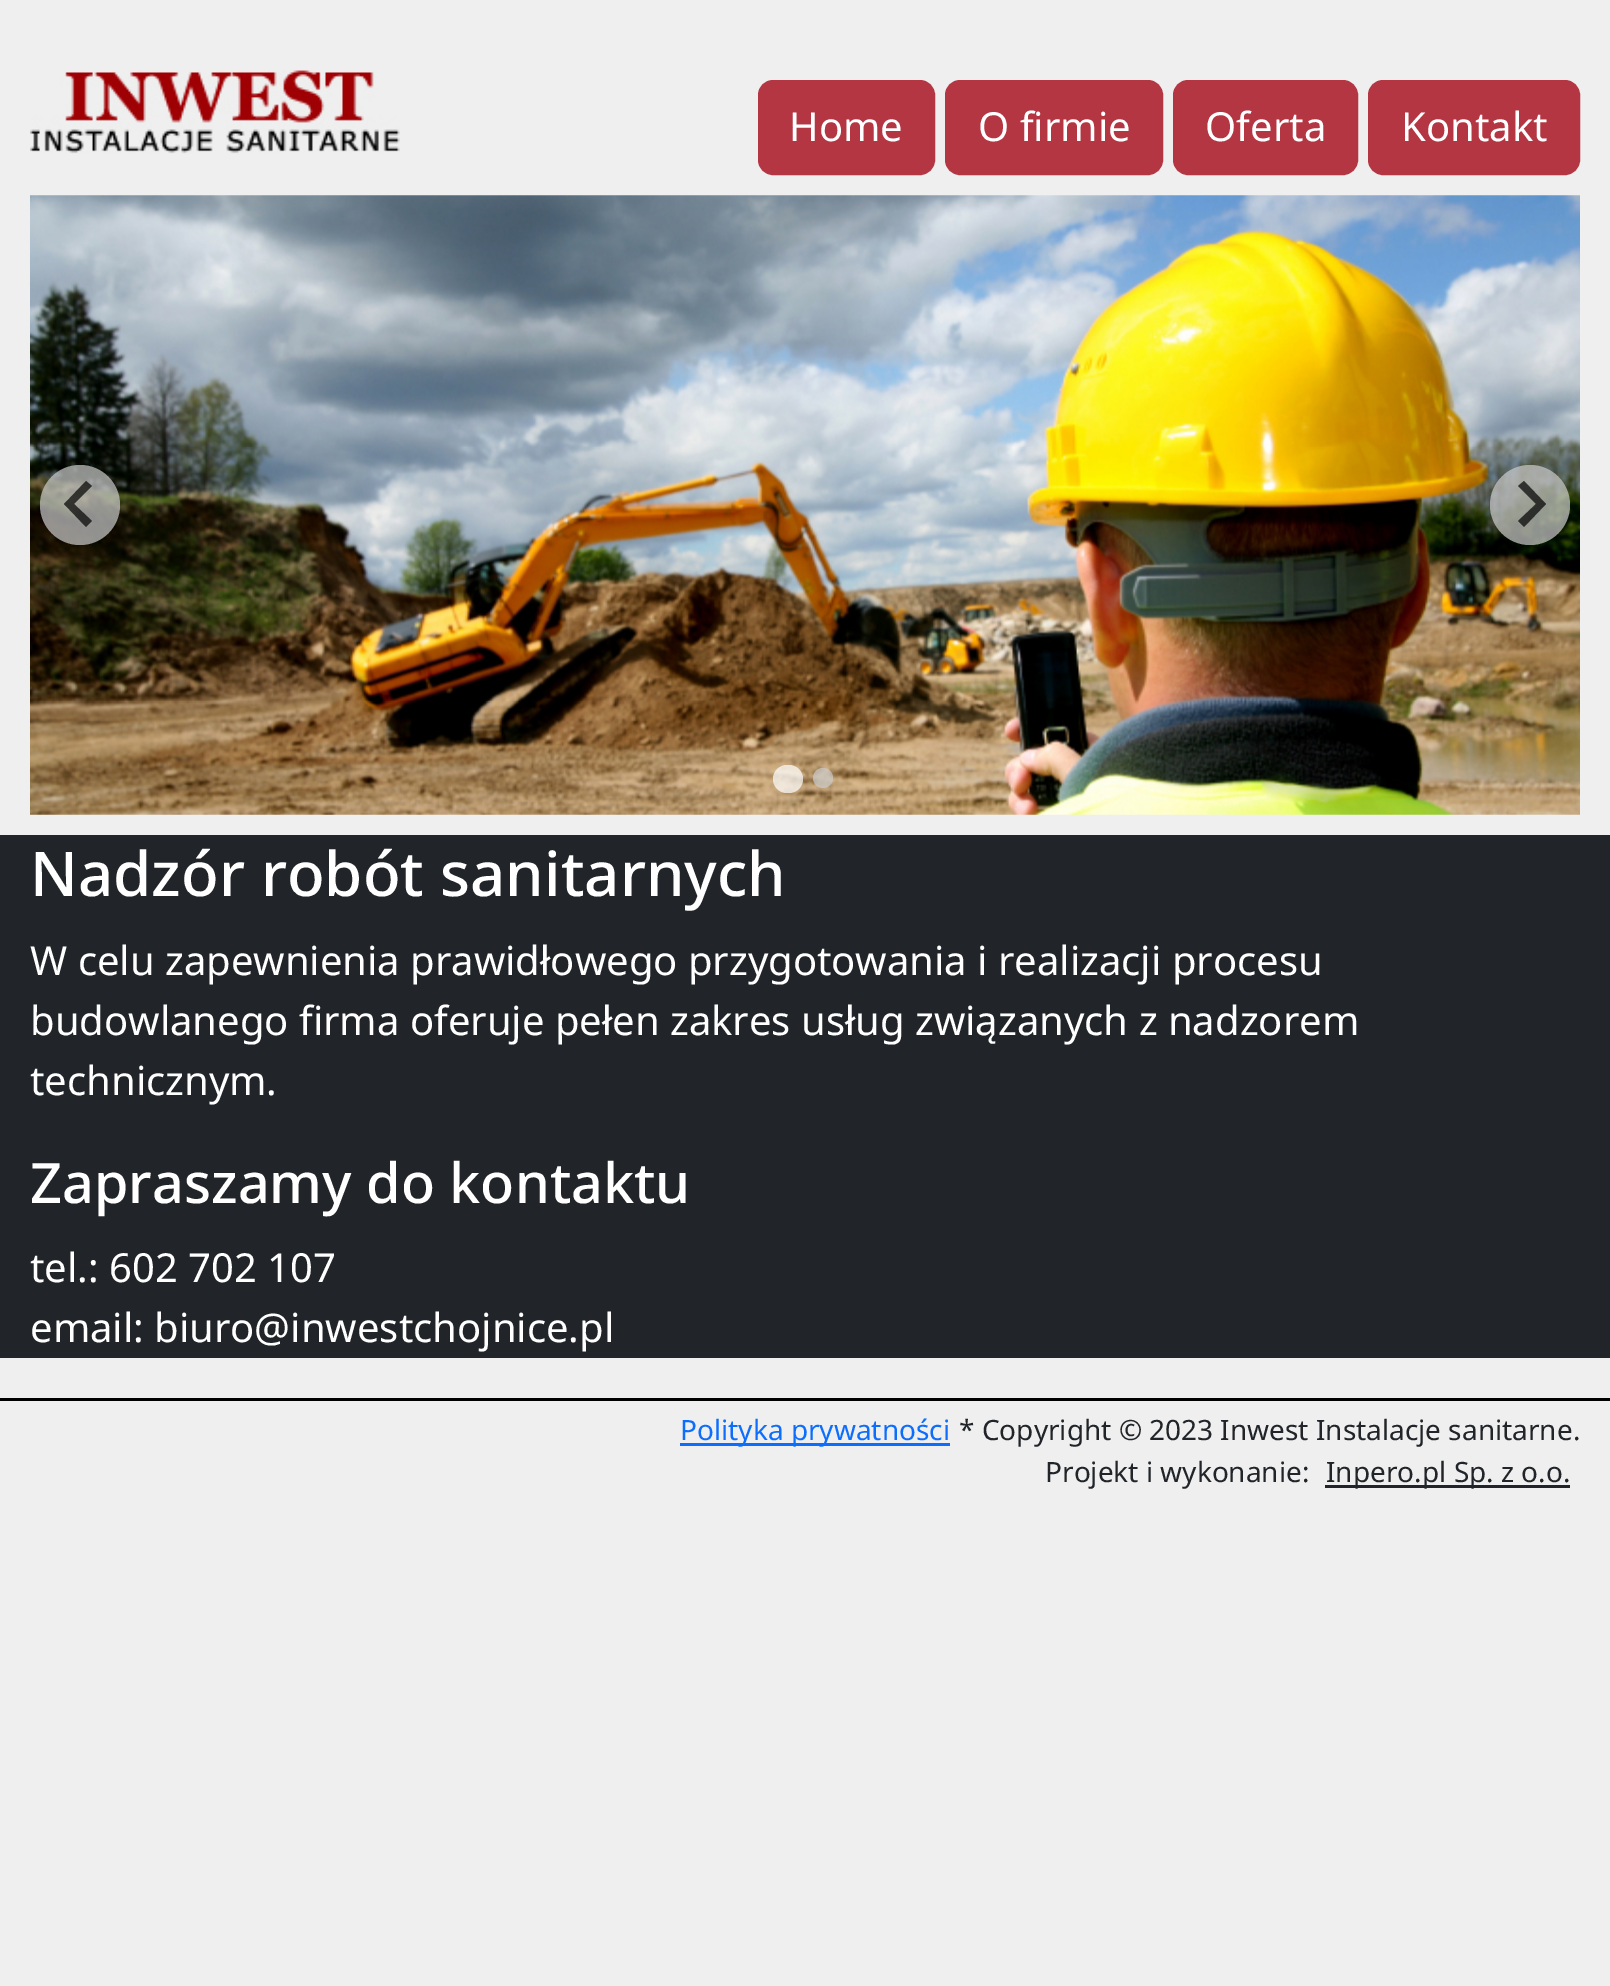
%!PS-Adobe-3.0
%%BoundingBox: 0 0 1610 1986
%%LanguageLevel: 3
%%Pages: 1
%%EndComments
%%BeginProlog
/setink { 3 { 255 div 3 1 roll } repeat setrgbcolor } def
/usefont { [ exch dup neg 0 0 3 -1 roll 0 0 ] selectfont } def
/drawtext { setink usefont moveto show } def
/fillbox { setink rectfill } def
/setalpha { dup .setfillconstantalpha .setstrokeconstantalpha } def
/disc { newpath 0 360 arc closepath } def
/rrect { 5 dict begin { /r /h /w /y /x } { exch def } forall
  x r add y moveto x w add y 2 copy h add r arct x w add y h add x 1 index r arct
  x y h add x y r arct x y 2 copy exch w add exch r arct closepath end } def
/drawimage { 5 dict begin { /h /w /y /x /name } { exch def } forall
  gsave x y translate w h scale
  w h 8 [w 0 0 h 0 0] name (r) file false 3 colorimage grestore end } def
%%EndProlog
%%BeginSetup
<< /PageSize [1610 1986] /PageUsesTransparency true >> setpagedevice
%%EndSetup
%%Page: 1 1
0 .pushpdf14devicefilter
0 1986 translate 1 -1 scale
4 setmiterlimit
0 0 1610 1986 239 239 239 fillbox
(assets/img1.rgb) 30 70 370 84 drawimage
179 54 66 setink
759.5 81.5 174 92 13.5 rrect gsave fill grestore
3 setlinewidth
stroke
(Home) 789 141 /NotoSans-Regular 40 255 255 255 drawtext
179 54 66 setink
946.5 81.5 215 92 13.5 rrect gsave fill grestore
stroke
(O firmie) 978 141 /NotoSans-Regular 40 255 255 255 drawtext
179 54 66 setink
1174.5 81.5 182 92 13.5 rrect gsave fill grestore
stroke
(Oferta) 1205 141 /NotoSans-Regular 40 255 255 255 drawtext
179 54 66 setink
1369.5 81.5 209 92 13.5 rrect gsave fill grestore
stroke
(Kontakt) 1401 141 /NotoSans-Regular 40 255 255 255 drawtext
(assets/img2.rgb) 30 195 1550 620 drawimage
0.7 setalpha
204 204 204 setink
80 505 40 disc fill
0 0 0 setink
86 481 moveto 92 486 lineto 74 504 lineto 92 521 lineto 86 527 lineto 64 504 lineto closepath fill
204 204 204 setink
1530 505 40 disc fill
0 0 0 setink
1524 481 moveto 1518 486 lineto 1536 504 lineto 1518 521 lineto 1524 527 lineto 1546 504 lineto closepath fill
255 255 255 setink
773 765 30 28 14 rrect fill
204 204 204 setink
823 778 10 disc fill
1 setalpha
0 835 1610 523 33 37 41 fillbox
(Nadzór robót sanitarnych) 30 896 /NotoSans-Medium 61.7 255 255 255 drawtext
(W celu zapewnienia prawidłowego przygotowania i realizacji procesu) 30 975 /NotoSans-Regular 40 255 255 255 drawtext
(budowlanego firma oferuje pełen zakres usług związanych z nadzorem) 30 1035 /NotoSans-Regular 40 255 255 255 drawtext
(technicznym.) 30 1095 /NotoSans-Regular 40 255 255 255 drawtext
(Zapraszamy do kontaktu) 30 1203 /NotoSans-Medium 55.75 255 255 255 drawtext
(tel.: 602 702 107) 30 1282 /NotoSans-Regular 40 255 255 255 drawtext
(email: biuro@inwestchojnice.pl) 30 1342 /NotoSans-Regular 40 255 255 255 drawtext
0 1398 1610 3 0 0 0 fillbox
680 1443 270 3 13 110 253 fillbox
(Polityka prywatności) 680 1440 /NotoSans-Regular 28 13 110 253 drawtext
(* Copyright © 2023 Inwest Instalacje sanitarne.) 959 1440 /NotoSans-Regular 28 33 37 41 drawtext
(Projekt i wykonanie:) 1045 1482 /NotoSans-Regular 28 33 37 41 drawtext
1325 1485 245 3 33 37 41 fillbox
(Inpero.pl Sp. z o.o.) 1326 1482 /NotoSans-Regular 28 33 37 41 drawtext
.poppdf14devicefilter showpage
%%EOF
